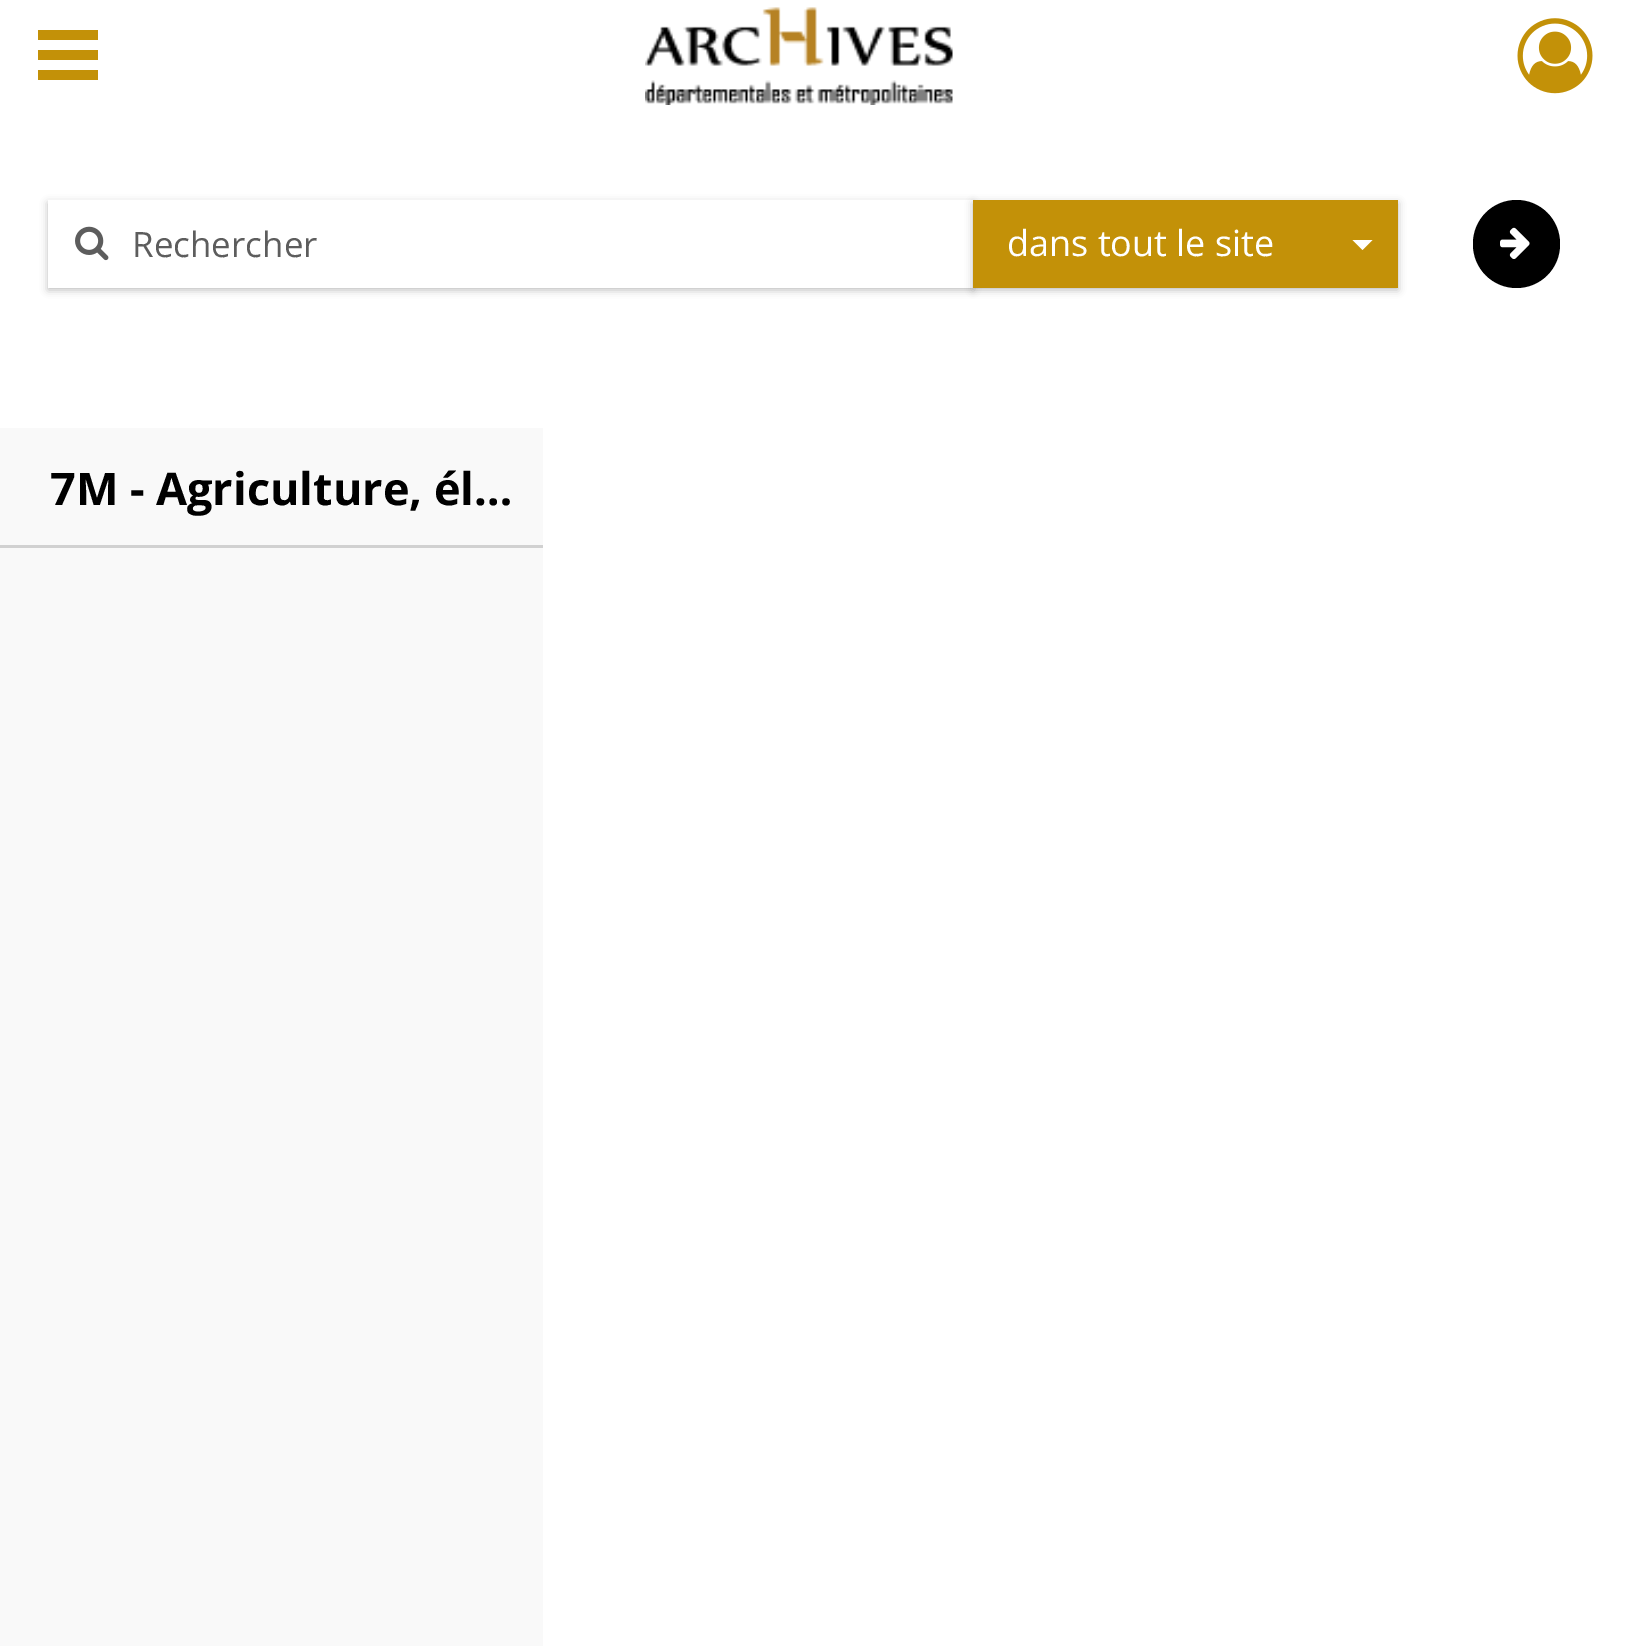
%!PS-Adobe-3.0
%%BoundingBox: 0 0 1626 1646
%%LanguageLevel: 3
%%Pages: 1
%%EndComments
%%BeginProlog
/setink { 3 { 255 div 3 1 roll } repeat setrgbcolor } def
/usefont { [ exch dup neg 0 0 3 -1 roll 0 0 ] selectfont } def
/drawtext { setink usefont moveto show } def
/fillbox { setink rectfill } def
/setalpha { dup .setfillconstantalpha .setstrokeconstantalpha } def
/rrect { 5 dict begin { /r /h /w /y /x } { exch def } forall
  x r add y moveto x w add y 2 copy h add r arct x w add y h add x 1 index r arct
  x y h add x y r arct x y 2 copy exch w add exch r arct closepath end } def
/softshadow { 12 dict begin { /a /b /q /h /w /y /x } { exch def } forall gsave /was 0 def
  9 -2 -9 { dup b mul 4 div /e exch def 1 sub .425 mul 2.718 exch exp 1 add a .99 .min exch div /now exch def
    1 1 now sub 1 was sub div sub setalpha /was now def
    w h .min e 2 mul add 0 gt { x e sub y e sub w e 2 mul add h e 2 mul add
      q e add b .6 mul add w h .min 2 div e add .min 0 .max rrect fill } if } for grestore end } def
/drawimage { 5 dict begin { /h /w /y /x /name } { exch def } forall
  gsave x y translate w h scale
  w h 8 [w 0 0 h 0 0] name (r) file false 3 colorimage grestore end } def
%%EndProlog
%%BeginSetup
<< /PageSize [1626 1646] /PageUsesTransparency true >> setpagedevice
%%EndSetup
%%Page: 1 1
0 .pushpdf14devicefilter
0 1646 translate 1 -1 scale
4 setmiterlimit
0 0 1626 1646 255 255 255 fillbox
38 30 60 10 195 145 8 fillbox
38 50 60 10 195 145 8 fillbox
38 70 60 10 195 145 8 fillbox
(assets/img1.rgb) 645 7 308 98 drawimage
(assets/img2.rgb) 1517 18 76 76 drawimage
0 0 0 setink
48 203 925 87 0 4 0.25 softshadow
48 200 925 88 255 255 255 fillbox
(assets/img3.rgb) 75 226 34 35 drawimage
(Rechercher) 132 257 /OpenSans-Regular 35 93 93 93 drawtext
0 0 0 setink
973 203 425 87 0 4 0.25 softshadow
973 200 425 88 195 145 8 fillbox
(dans tout le site) 1007 256 /OpenSans-Regular 36 255 255 255 drawtext
1352.5 240 moveto 1372.5 240 lineto 1362.5 250 lineto closepath fill
0 0 0 setink
1473 200 87 88 43.5 rrect fill
(assets/img4.rgb) 1500 227 30 32 drawimage
0 428 543 117 249 249 249 fillbox
0 545 543 3 209 209 209 fillbox
(7M - Agriculture, él…) 50 505 /OpenSans-Bold 45 0 0 0 drawtext
0 548 543 1098 249 249 249 fillbox
.poppdf14devicefilter showpage
%%EOF
